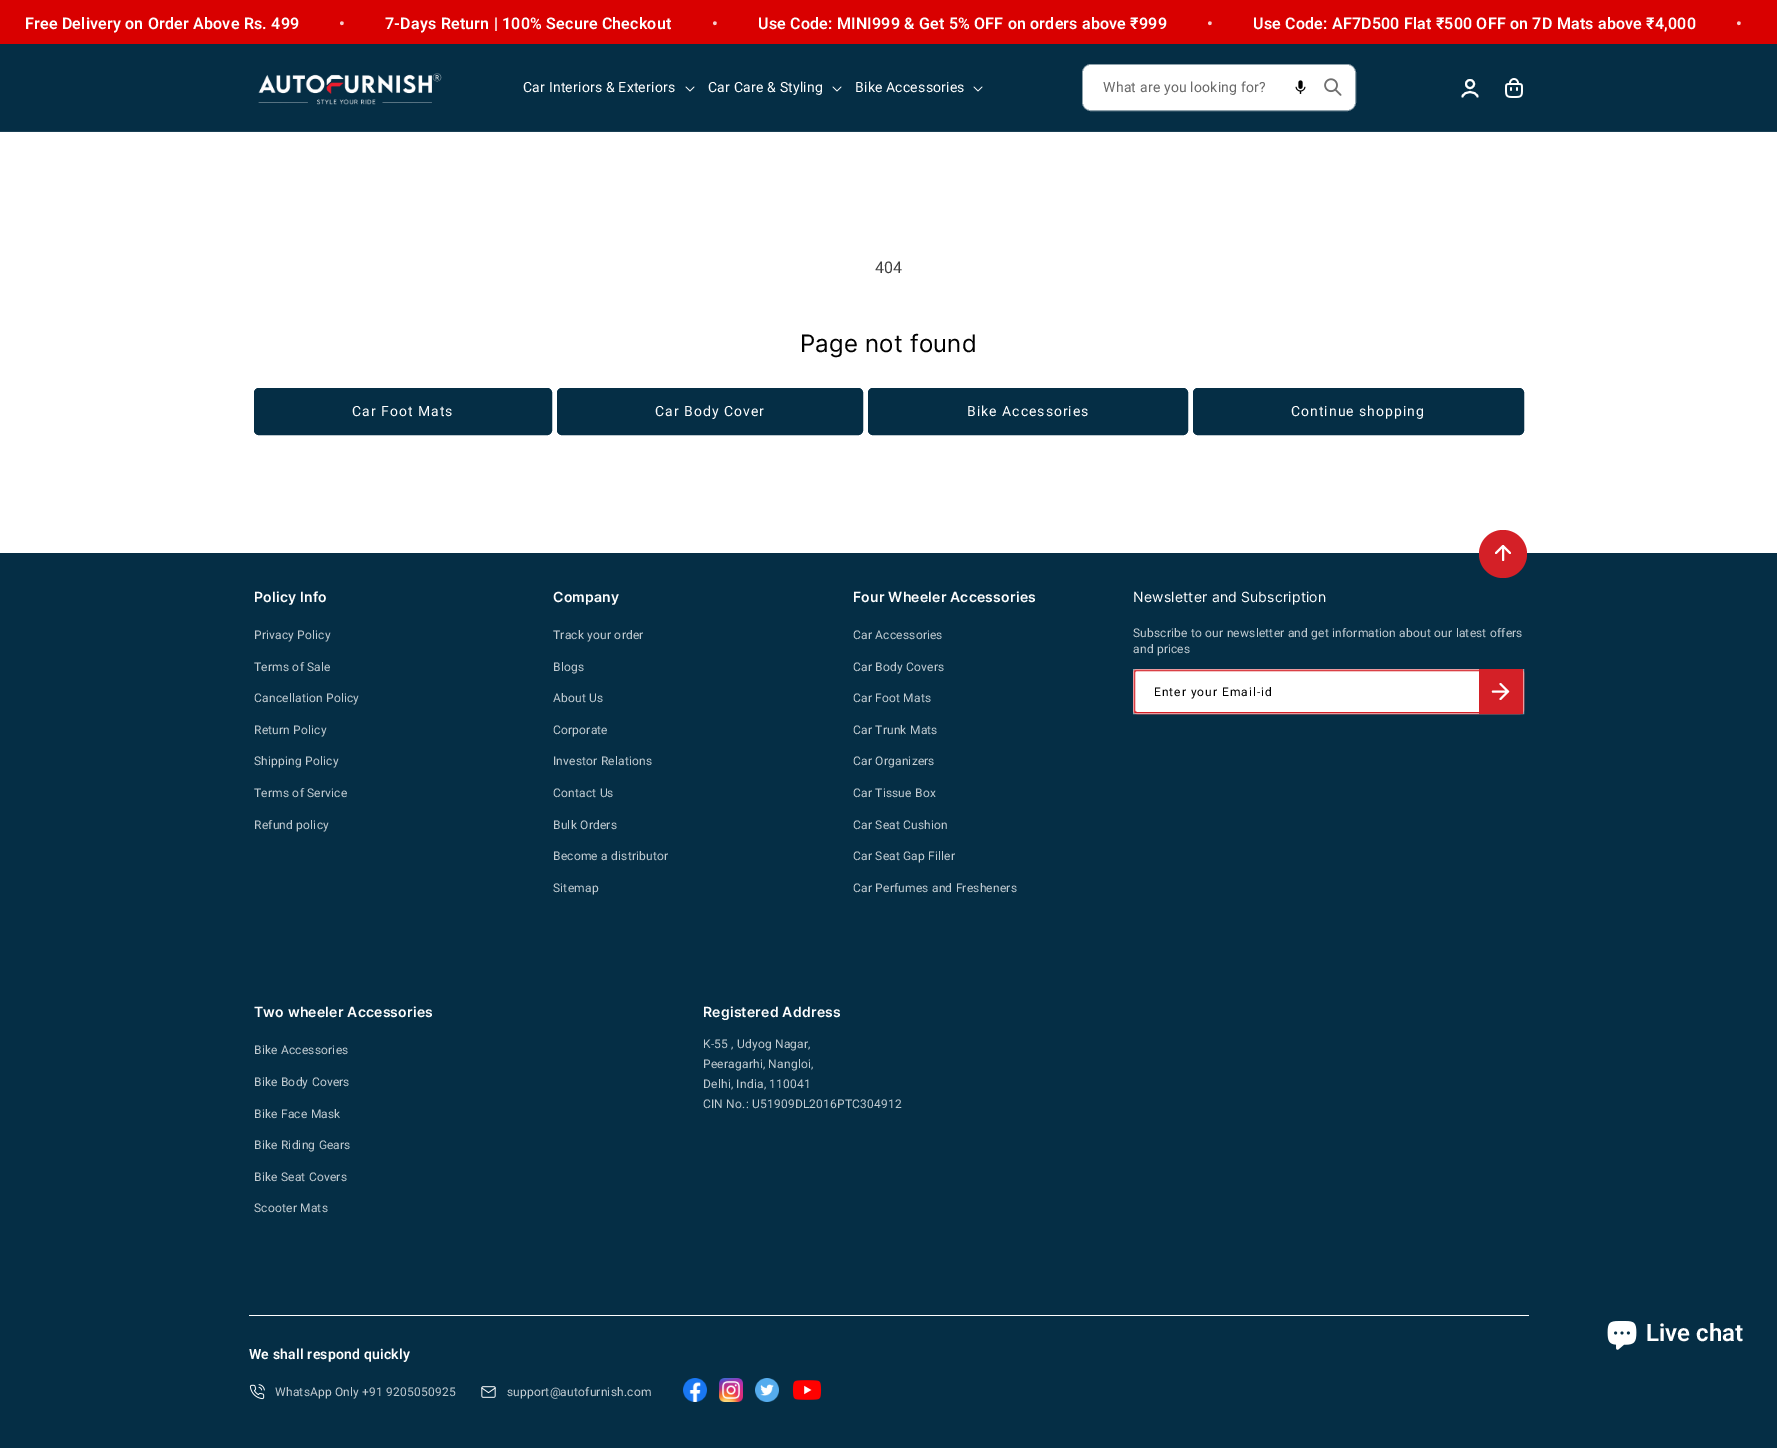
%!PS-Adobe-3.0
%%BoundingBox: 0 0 1777 1448
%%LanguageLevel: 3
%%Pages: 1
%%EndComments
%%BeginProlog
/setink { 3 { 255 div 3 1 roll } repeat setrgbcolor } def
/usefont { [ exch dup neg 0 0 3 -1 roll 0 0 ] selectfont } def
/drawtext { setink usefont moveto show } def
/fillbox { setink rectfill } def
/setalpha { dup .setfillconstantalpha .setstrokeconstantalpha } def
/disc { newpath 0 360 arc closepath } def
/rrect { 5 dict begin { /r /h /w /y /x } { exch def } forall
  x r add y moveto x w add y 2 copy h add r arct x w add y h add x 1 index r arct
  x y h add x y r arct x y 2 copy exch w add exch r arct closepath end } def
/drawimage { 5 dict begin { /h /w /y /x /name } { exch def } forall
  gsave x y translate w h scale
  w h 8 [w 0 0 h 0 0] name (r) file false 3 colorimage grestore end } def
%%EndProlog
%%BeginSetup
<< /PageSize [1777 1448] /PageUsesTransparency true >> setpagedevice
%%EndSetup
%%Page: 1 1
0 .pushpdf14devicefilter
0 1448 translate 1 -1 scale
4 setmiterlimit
0 0 1777 1448 255 255 255 fillbox
0 0 1777 44 217 0 0 fillbox
/Roboto-SemiBold 16 usefont
255 255 255 setink
25 29 moveto 0.2 0 (Free Delivery on Order Above Rs. 499) ashow
/Roboto-Bold 16 usefont
247 204 204 setink
339 29 moveto 0.2 0 (•) ashow
/Roboto-SemiBold 16 usefont
255 255 255 setink
385 29 moveto 0.2 0 (7-Days Return | 100% Secure Checkout) ashow
/Roboto-Bold 16 usefont
247 204 204 setink
712 29 moveto 0.2 0 (•) ashow
/Roboto-SemiBold 16 usefont
255 255 255 setink
758 29 moveto 0.2 0 (Use Code: MINI999 & Get 5% OFF on orders above ₹999) ashow
/Roboto-Bold 16 usefont
247 204 204 setink
1207 29 moveto 0.2 0 (•) ashow
/Roboto-SemiBold 16 usefont
255 255 255 setink
1253 29 moveto 0.2 0 (Use Code: AF7D500 Flat ₹500 OFF on 7D Mats above ₹4,000) ashow
/Roboto-Bold 16 usefont
247 204 204 setink
1736 29 moveto 0.2 0 (•) ashow
0 44 1777 87 5 46 69 fillbox
0 131 1777 1 25 63 84 fillbox
(assets/img1.rgb) 258 73 184 32 drawimage
/Roboto-Regular 14 usefont
255 255 255 setink
523 92 moveto 0.2 0 (Car Interiors & Exteriors) ashow
(assets/img2.rgb) 685 86 10 6 drawimage
708 92 moveto 0.2 0 (Car Care & Styling) ashow
(assets/img2.rgb) 832 86 10 6 drawimage
855 92 moveto 0.2 0 (Bike Accessories) ashow
(assets/img2.rgb) 973 86 10 6 drawimage
1083 65 272 45 8 rrect fill
(assets/img3.rgb) 1295 80 11 14 drawimage
(assets/img4.rgb) 1324 78 18 18 drawimage
0.55 setalpha
1082.5 64.5 273 46 8.5 rrect stroke
1 setalpha
105 105 105 setink
1103 92 moveto 0.2 0 (What are you looking for?) ashow
255 255 255 setink
2 setlinewidth
1 setlinecap
1477.5 96.5 moveto 1475.5 90.5 1464.5 90.5 1462.5 96.5 curveto stroke
0 setlinecap
1470 84 4 disc stroke
(assets/img5.rgb) 1505 78 18 20 drawimage
/Roboto-Regular 16 usefont
64 64 64 setink
875 273 moveto 0.2 0 (404) ashow
/Inter-Regular 24 usefont
0 0 0 setink
800 352 moveto 0.2 0 (Page not found) ashow
5 46 69 setink
254 388 298 47 5 rrect fill
1 setlinewidth
254.5 388.5 297 46 4.5 rrect stroke
/Roboto-Regular 14 usefont
255 255 255 setink
352 416 moveto 1 0 (Car Foot Mats) ashow
5 46 69 setink
557 388 306 47 5 rrect fill
557.5 388.5 305 46 4.5 rrect stroke
255 255 255 setink
655 416 moveto 1 0 (Car Body Cover) ashow
5 46 69 setink
868 388 320 47 5 rrect fill
868.5 388.5 319 46 4.5 rrect stroke
255 255 255 setink
967 416 moveto 1 0 (Bike Accessories) ashow
5 46 69 setink
1193 388 331 47 5 rrect fill
1193.5 388.5 330 46 4.5 rrect stroke
255 255 255 setink
1291 416 moveto 1 0 (Continue shopping) ashow
0 553 1777 895 5 46 69 fillbox
212 32 39 setink
1503 554 24 disc fill
255 255 255 setink
2 setlinewidth
1 setlinecap
1 setlinejoin
1503 560 moveto 1503 546 lineto 1496 553 moveto 1503 546 lineto 1510 553 lineto stroke
/Inter-SemiBold 14 usefont
254 602 moveto 0.2 0 (Policy Info) ashow
/Roboto-Regular 12 usefont
193 203 209 setink
254 639 moveto 0.2 0 (Privacy Policy) ashow
254 671 moveto 0.2 0 (Terms of Sale) ashow
254 702 moveto 0.2 0 (Cancellation Policy) ashow
254 734 moveto 0.2 0 (Return Policy) ashow
254 765 moveto 0.2 0 (Shipping Policy) ashow
254 797 moveto 0.2 0 (Terms of Service) ashow
254 829 moveto 0.2 0 (Refund policy) ashow
/Inter-SemiBold 14 usefont
255 255 255 setink
553 602 moveto 0.2 0 (Company) ashow
/Roboto-Regular 12 usefont
193 203 209 setink
553 639 moveto 0.2 0 (Track your order) ashow
553 671 moveto 0.2 0 (Blogs) ashow
553 702 moveto 0.2 0 (About Us) ashow
553 734 moveto 0.2 0 (Corporate) ashow
553 765 moveto 0.2 0 (Investor Relations) ashow
553 797 moveto 0.2 0 (Contact Us) ashow
553 829 moveto 0.2 0 (Bulk Orders) ashow
553 860 moveto 0.2 0 (Become a distributor) ashow
553 892 moveto 0.2 0 (Sitemap) ashow
/Inter-SemiBold 14 usefont
255 255 255 setink
853 602 moveto 0.2 0 (Four Wheeler Accessories) ashow
/Roboto-Regular 12 usefont
193 203 209 setink
853 639 moveto 0.2 0 (Car Accessories) ashow
853 671 moveto 0.2 0 (Car Body Covers) ashow
853 702 moveto 0.2 0 (Car Foot Mats) ashow
853 734 moveto 0.2 0 (Car Trunk Mats) ashow
853 765 moveto 0.2 0 (Car Organizers) ashow
853 797 moveto 0.2 0 (Car Tissue Box) ashow
853 829 moveto 0.2 0 (Car Seat Cushion) ashow
853 860 moveto 0.2 0 (Car Seat Gap Filler) ashow
853 892 moveto 0.2 0 (Car Perfumes and Fresheners) ashow
/Inter-SemiBold 14 usefont
255 255 255 setink
254 1017 moveto 0.2 0 (Two wheeler Accessories) ashow
/Roboto-Regular 12 usefont
193 203 209 setink
254 1054 moveto 0.2 0 (Bike Accessories) ashow
254 1086 moveto 0.2 0 (Bike Body Covers) ashow
254 1118 moveto 0.2 0 (Bike Face Mask) ashow
254 1149 moveto 0.2 0 (Bike Riding Gears) ashow
254 1181 moveto 0.2 0 (Bike Seat Covers) ashow
254 1212 moveto 0.2 0 (Scooter Mats) ashow
/Inter-SemiBold 14 usefont
255 255 255 setink
703 1017 moveto 0.2 0 (Registered Address) ashow
/Roboto-Regular 12 usefont
193 203 209 setink
703 1048 moveto 0.2 0 (K-55 , Udyog Nagar,) ashow
703 1068 moveto 0.2 0 (Peeragarhi, Nangloi,) ashow
703 1088 moveto 0.2 0 (Delhi, India, 110041) ashow
703 1108 moveto 0.2 0 (CIN No.: U51909DL2016PTC304912) ashow
/Inter-Regular 14 usefont
255 255 255 setink
1133 602 moveto 0.2 0 (Newsletter and Subscription) ashow
/Roboto-Regular 12 usefont
193 203 209 setink
1133 637 moveto 0.2 0 (Subscribe to our newsletter and get information about our latest offers) ashow
1133 653 moveto 0.2 0 (and prices) ashow
255 255 255 setink
1134 670 389 43 3 rrect gsave fill grestore
212 32 39 setink
0 setlinecap
0 setlinejoin
stroke
0.55 setalpha
255 255 255 setink
1 setlinewidth
1133.5 669.5 390 44 rectstroke
1 setalpha
0 0 0 setink
1154 696 moveto 1 0 (Enter your Email-id) ashow
1479 669 44 45 212 32 39 fillbox
255 255 255 setink
2.1 setlinewidth
1 setlinecap
1 setlinejoin
1493 691.5 moveto 1508 691.5 lineto 1500.5 684 moveto 1508 691.5 lineto 1500.5 699 lineto stroke
249 1315 1280 1 255 255 255 fillbox
/Roboto-SemiBold 14 usefont
249 1359 moveto 0.2 0 (We shall respond quickly) ashow
(assets/img6.rgb) 249 1384 16 16 drawimage
/Roboto-Regular 12 usefont
193 203 209 setink
275 1396 moveto 0.2 0 (WhatsApp Only +91 9205050925) ashow
(assets/img7.rgb) 481 1386 15 12 drawimage
507 1396 moveto 0.2 0 (support@autofurnish.com) ashow
(assets/img8.rgb) 683 1378 24 24 drawimage
(assets/img9.rgb) 719 1378 24 24 drawimage
(assets/img10.rgb) 755 1378 24 24 drawimage
(assets/img11.rgb) 792 1380 30 20 drawimage
(assets/img12.rgb) 1607 1321 30 29 drawimage
(Live chat) 1646 1341 /Roboto-SemiBold 24 255 255 255 drawtext
.poppdf14devicefilter showpage
%%EOF
